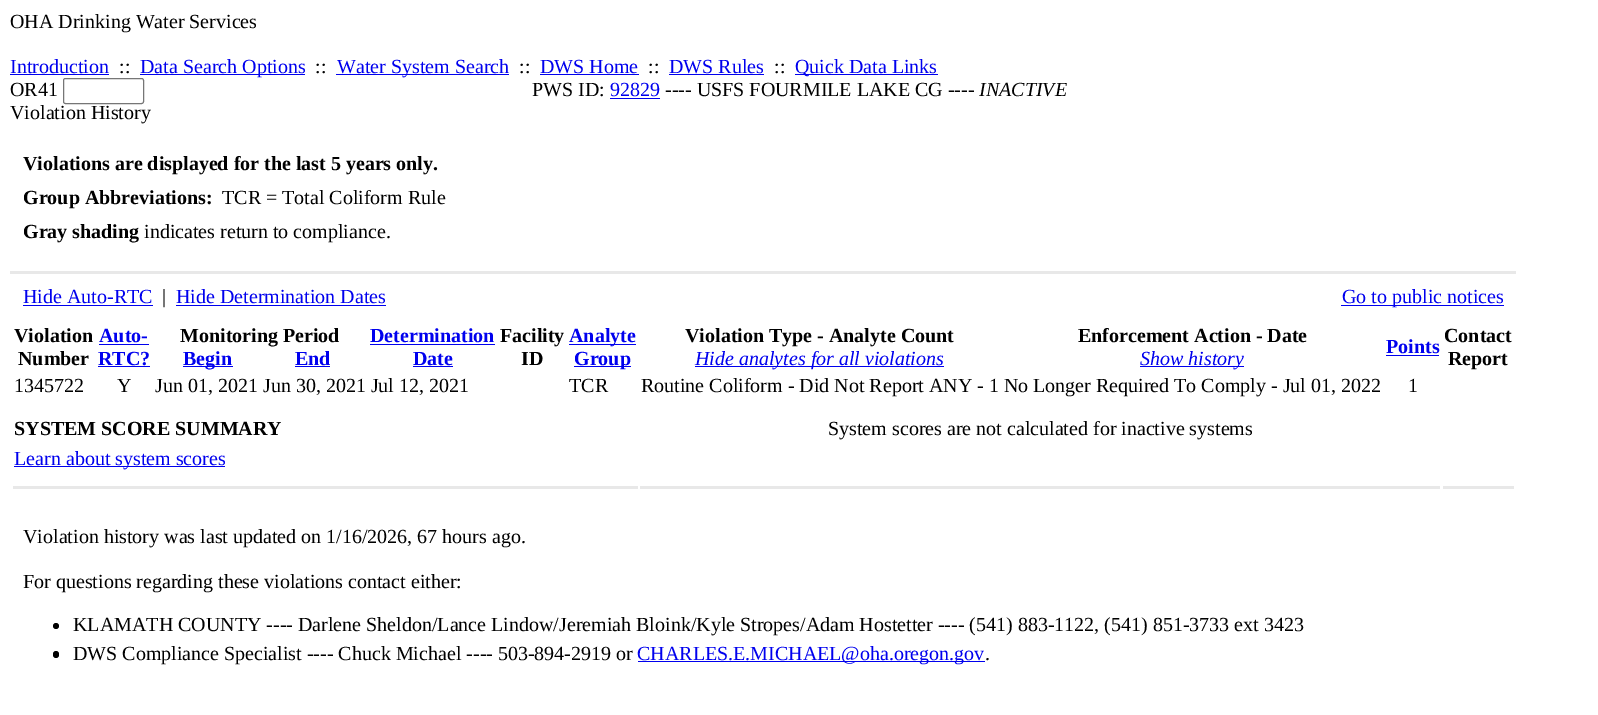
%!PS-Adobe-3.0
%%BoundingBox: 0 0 1598 715
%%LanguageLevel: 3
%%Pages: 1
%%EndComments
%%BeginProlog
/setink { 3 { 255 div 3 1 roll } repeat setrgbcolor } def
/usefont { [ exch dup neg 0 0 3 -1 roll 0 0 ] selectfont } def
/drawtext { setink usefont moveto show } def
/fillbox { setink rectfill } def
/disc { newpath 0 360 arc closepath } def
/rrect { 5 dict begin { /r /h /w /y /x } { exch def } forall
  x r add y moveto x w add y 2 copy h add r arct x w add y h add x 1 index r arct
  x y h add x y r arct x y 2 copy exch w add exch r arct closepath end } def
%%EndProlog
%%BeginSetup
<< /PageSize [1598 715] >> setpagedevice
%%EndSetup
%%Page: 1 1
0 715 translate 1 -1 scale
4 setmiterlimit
0 0 1598 715 255 255 255 fillbox
(OHA Drinking Water Services) 10 28 /LiberationSerif-Regular 20 0 0 0 drawtext
(Introduction) 10 73 /LiberationSerif-Regular 20 0 0 238 drawtext
10 74 99 1 0 0 238 fillbox
(::) 119 73 /LiberationSerif-Regular 20 0 0 0 drawtext
140 74 165 1 0 0 238 fillbox
(Data Search Options) 140 73 /LiberationSerif-Regular 20 0 0 238 drawtext
(::) 315 73 /LiberationSerif-Regular 20 0 0 0 drawtext
336 74 173 1 0 0 238 fillbox
(Water System Search) 337 73 /LiberationSerif-Regular 20 0 0 238 drawtext
(::) 519 73 /LiberationSerif-Regular 20 0 0 0 drawtext
(DWS Home) 540 73 /LiberationSerif-Regular 20 0 0 238 drawtext
540 74 99 1 0 0 238 fillbox
(::) 648 73 /LiberationSerif-Regular 20 0 0 0 drawtext
(DWS Rules) 669 73 /LiberationSerif-Regular 20 0 0 238 drawtext
669 74 95 1 0 0 238 fillbox
(::) 774 73 /LiberationSerif-Regular 20 0 0 0 drawtext
795 74 143 1 0 0 238 fillbox
(Quick Data Links) 795 73 /LiberationSerif-Regular 20 0 0 238 drawtext
(OR41) 10 96 /LiberationSerif-Regular 20 0 0 0 drawtext
118 118 118 setink
63.5 78.5 80 25 2 rrect stroke
(PWS ID:) 532 96 /LiberationSerif-Regular 20 0 0 0 drawtext
(92829) 610 96 /LiberationSerif-Regular 20 0 0 238 drawtext
610 98 50 1 0 0 238 fillbox
(---- USFS FOURMILE LAKE CG ----) 665 96 /LiberationSerif-Regular 20 0 0 0 drawtext
(INACTIVE) 979 96 /LiberationSerif-Italic 20 0 0 0 drawtext
(Violation History) 10 119 /LiberationSerif-Regular 20 0 0 0 drawtext
(Violations are displayed for the last 5 years only.) 23 170 /LiberationSerif-Bold 20 0 0 0 drawtext
(Group Abbreviations:) 23 204 /LiberationSerif-Bold 20 0 0 0 drawtext
(TCR = Total Coliform Rule) 222 204 /LiberationSerif-Regular 20 0 0 0 drawtext
(Gray shading) 23 238 /LiberationSerif-Bold 20 0 0 0 drawtext
(indicates return to compliance.) 144 238 /LiberationSerif-Regular 20 0 0 0 drawtext
10 271 1506 3 232 232 232 fillbox
(Hide Auto-RTC) 23 303 /LiberationSerif-Regular 20 0 0 238 drawtext
23 305 130 1 0 0 238 fillbox
(|) 162 303 /LiberationSerif-Regular 20 0 0 0 drawtext
(Hide Determination Dates) 176 303 /LiberationSerif-Regular 20 0 0 238 drawtext
176 305 210 1 0 0 238 fillbox
1341 305 163 1 0 0 238 fillbox
(Go to public notices) 1342 303 /LiberationSerif-Regular 20 0 0 238 drawtext
(Violation) 14 342 /LiberationSerif-Bold 20 0 0 0 drawtext
(Number) 18 365 /LiberationSerif-Bold 20 0 0 0 drawtext
(Auto-) 99 342 /LiberationSerif-Bold 20 0 0 238 drawtext
99 344 50 1 0 0 238 fillbox
(RTC?) 98 365 /LiberationSerif-Bold 20 0 0 238 drawtext
98 366 52 1 0 0 238 fillbox
(Monitoring Period) 180 342 /LiberationSerif-Bold 20 0 0 0 drawtext
183 366 50 1 0 0 238 fillbox
(Begin) 183 365 /LiberationSerif-Bold 20 0 0 238 drawtext
(End) 295 365 /LiberationSerif-Bold 20 0 0 238 drawtext
295 366 35 1 0 0 238 fillbox
(Determination) 370 342 /LiberationSerif-Bold 20 0 0 238 drawtext
370 344 125 1 0 0 238 fillbox
(Date) 413 365 /LiberationSerif-Bold 20 0 0 238 drawtext
413 366 40 1 0 0 238 fillbox
(Facility) 500 342 /LiberationSerif-Bold 20 0 0 0 drawtext
(ID) 521 365 /LiberationSerif-Bold 20 0 0 0 drawtext
569 344 67 1 0 0 238 fillbox
(Analyte) 569 342 /LiberationSerif-Bold 20 0 0 238 drawtext
574 366 57 1 0 0 238 fillbox
(Group) 574 365 /LiberationSerif-Bold 20 0 0 238 drawtext
(Violation Type - Analyte Count) 685 342 /LiberationSerif-Bold 20 0 0 0 drawtext
695 366 249 1 0 0 238 fillbox
(Hide analytes for all violations) 695 365 /LiberationSerif-Italic 20 0 0 238 drawtext
(Enforcement Action - Date) 1078 342 /LiberationSerif-Bold 20 0 0 0 drawtext
1140 366 104 1 0 0 238 fillbox
(Show history) 1140 365 /LiberationSerif-Italic 20 0 0 238 drawtext
(Points) 1386 353 /LiberationSerif-Bold 20 0 0 238 drawtext
1386 355 53 1 0 0 238 fillbox
(Contact) 1444 342 /LiberationSerif-Bold 20 0 0 0 drawtext
(Report) 1448 365 /LiberationSerif-Bold 20 0 0 0 drawtext
(1345722) 14 392 /LiberationSerif-Regular 20 0 0 0 drawtext
(Y) 117 392 /LiberationSerif-Regular 20 0 0 0 drawtext
(Jun 01, 2021 Jun 30, 2021 Jul 12, 2021) 155 392 /LiberationSerif-Regular 20 0 0 0 drawtext
(TCR) 569 392 /LiberationSerif-Regular 20 0 0 0 drawtext
(Routine Coliform - Did Not Report ANY - 1 No Longer Required To Comply - Jul 01, 2022) 641 392 /LiberationSerif-Regular 20 0 0 0 drawtext
(1) 1408 392 /LiberationSerif-Regular 20 0 0 0 drawtext
13 486 625 3 232 232 232 fillbox
(SYSTEM SCORE SUMMARY) 14 435 /LiberationSerif-Bold 20 0 0 0 drawtext
14 466 211 1 0 0 238 fillbox
(Learn about system scores) 14 465 /LiberationSerif-Regular 20 0 0 238 drawtext
640 486 800 3 232 232 232 fillbox
(System scores are not calculated for inactive systems) 828 435 /LiberationSerif-Regular 20 0 0 0 drawtext
1443 486 71 3 232 232 232 fillbox
(Violation history was last updated on 1/16/2026, 67 hours ago.) 23 543 /LiberationSerif-Regular 20 0 0 0 drawtext
(For questions regarding these violations contact either:) 23 588 /LiberationSerif-Regular 20 0 0 0 drawtext
56 626 3 disc fill
(KLAMATH COUNTY ---- Darlene Sheldon/Lance Lindow/Jeremiah Bloink/Kyle Stropes/Adam Hostetter ---- \(541\) 883-1122, \(541\) 851-3733 ext 3423) 73 631 /LiberationSerif-Regular 20 0 0 0 drawtext
53 651 6 7 3 rrect fill
(DWS Compliance Specialist ---- Chuck Michael ---- 503-894-2919 or) 73 660 /LiberationSerif-Regular 20 0 0 0 drawtext
638 661 347 1 0 0 238 fillbox
(CHARLES.E.MICHAEL@oha.oregon.gov) 637 660 /LiberationSerif-Regular 20 0 0 238 drawtext
(.) 985 660 /LiberationSerif-Regular 20 0 0 0 drawtext
showpage
%%EOF
